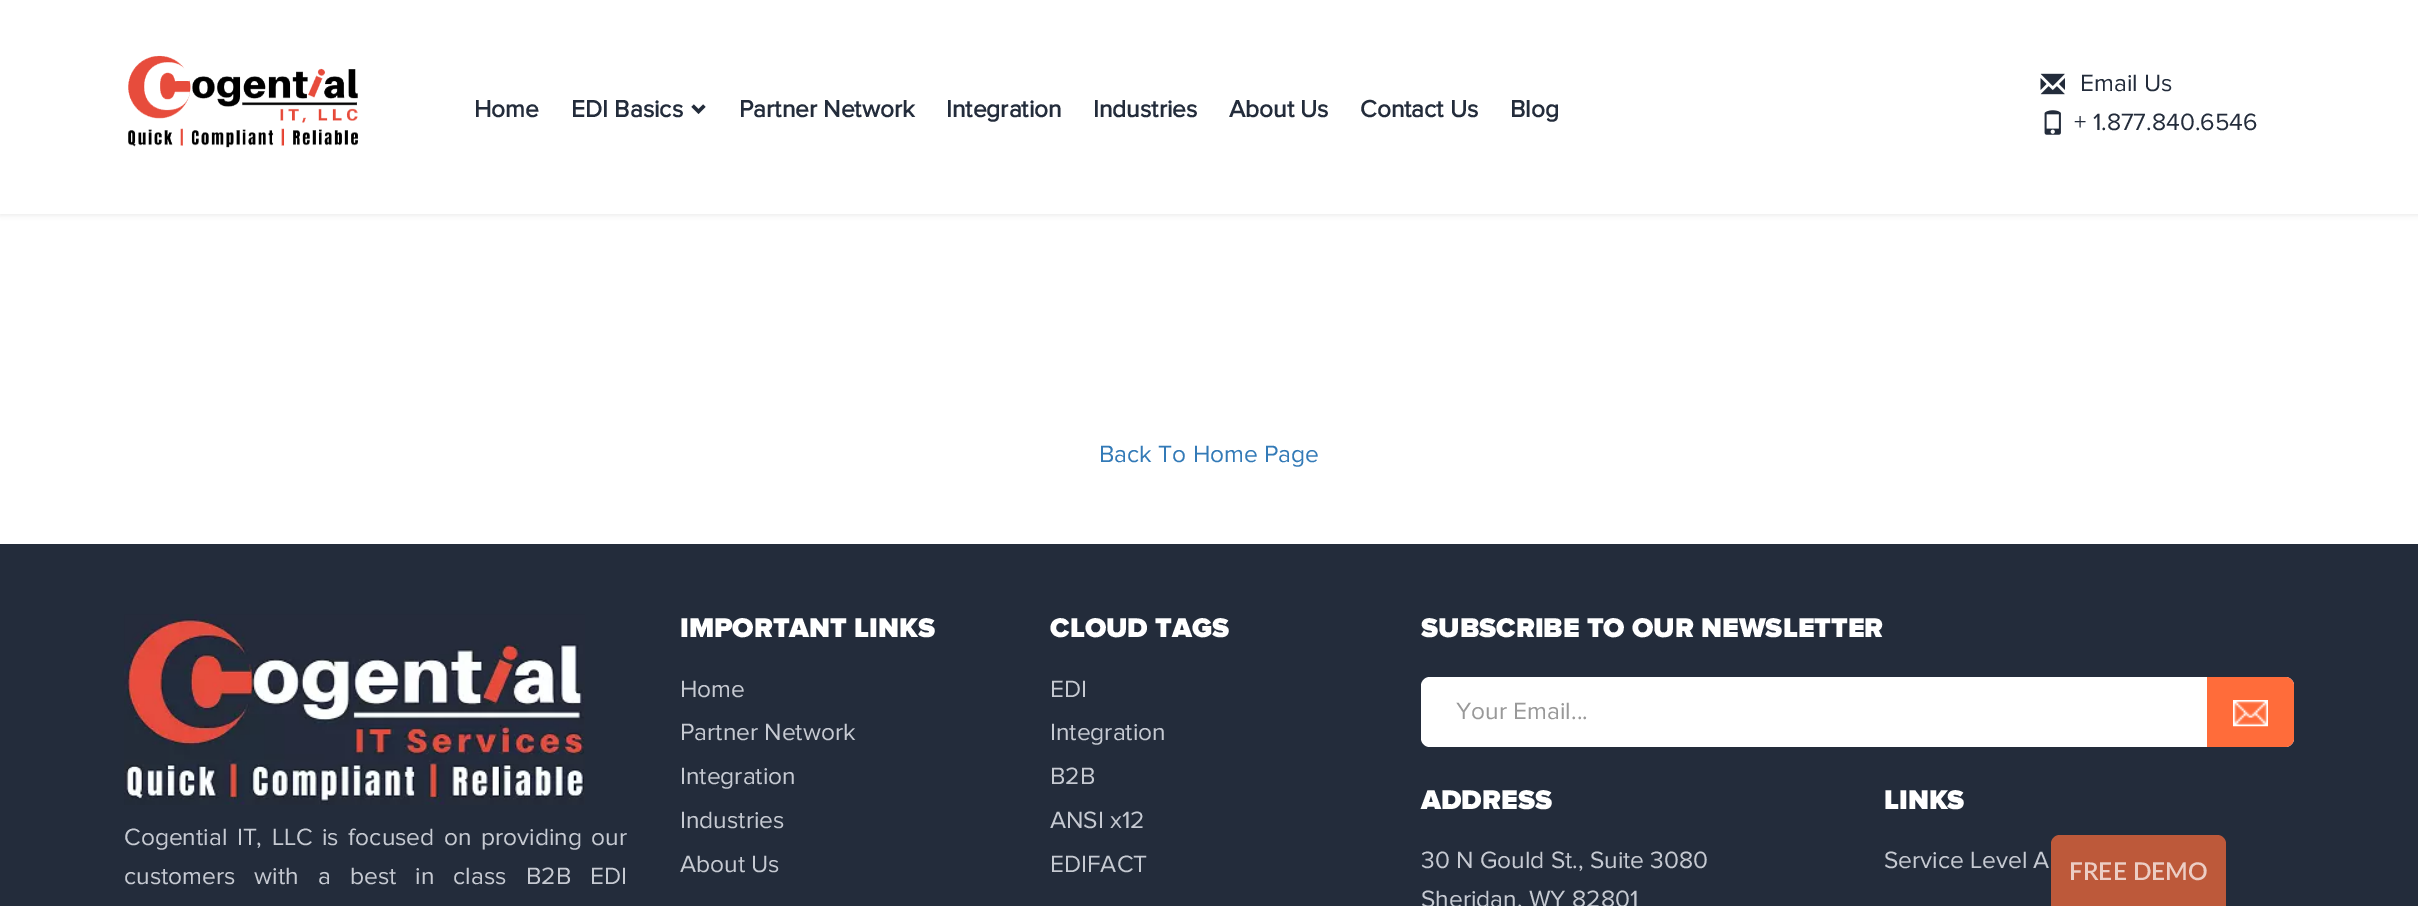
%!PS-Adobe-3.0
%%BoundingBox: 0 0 2418 906
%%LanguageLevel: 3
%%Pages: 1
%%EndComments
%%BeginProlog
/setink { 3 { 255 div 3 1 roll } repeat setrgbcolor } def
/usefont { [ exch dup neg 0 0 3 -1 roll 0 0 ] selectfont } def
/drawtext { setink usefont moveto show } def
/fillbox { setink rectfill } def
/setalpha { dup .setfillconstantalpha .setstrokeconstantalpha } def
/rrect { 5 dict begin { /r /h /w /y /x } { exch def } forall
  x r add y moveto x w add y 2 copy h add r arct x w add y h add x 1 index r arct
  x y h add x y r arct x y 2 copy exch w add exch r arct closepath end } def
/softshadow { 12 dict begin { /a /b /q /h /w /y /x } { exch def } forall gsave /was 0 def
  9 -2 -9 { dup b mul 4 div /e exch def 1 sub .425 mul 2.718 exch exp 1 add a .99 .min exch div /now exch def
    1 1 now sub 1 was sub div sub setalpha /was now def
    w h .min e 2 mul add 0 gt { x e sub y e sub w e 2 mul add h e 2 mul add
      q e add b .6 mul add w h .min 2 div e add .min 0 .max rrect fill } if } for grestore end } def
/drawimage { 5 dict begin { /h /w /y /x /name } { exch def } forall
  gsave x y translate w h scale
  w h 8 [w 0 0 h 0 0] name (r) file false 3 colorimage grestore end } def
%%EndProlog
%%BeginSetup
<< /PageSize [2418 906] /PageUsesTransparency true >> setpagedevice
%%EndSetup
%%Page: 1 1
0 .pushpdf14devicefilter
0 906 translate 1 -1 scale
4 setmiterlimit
0 0 2418 906 255 255 255 fillbox
0 0 0 setink
0 2 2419 213 0 2.5 0.08 softshadow
0 0 2418 214 255 255 255 fillbox
(assets/img1.rgb) 128 55 230 93 drawimage
(Home) 474 117 /ProximaNova-Bold 24.5 35 44 59 drawtext
(EDI Basics) 571 117 /ProximaNova-Bold 24.5 35 44 59 drawtext
(assets/img2.rgb) 691 104 15 10 drawimage
(Partner Network) 739 117 /ProximaNova-Bold 24.5 35 44 59 drawtext
(Integration) 946 117 /ProximaNova-Bold 24.5 35 44 59 drawtext
(Industries) 1093 117 /ProximaNova-Bold 24.5 35 44 59 drawtext
(About Us) 1229 117 /ProximaNova-Bold 24.5 35 44 59 drawtext
(Contact Us) 1360 117 /ProximaNova-Bold 24.5 35 44 59 drawtext
(Blog) 1510 117 /ProximaNova-Bold 24.5 35 44 59 drawtext
(assets/img3.rgb) 2040 73 25 22 drawimage
(Email Us) 2080 91 /ProximaNova-Regular 24.5 35 44 59 drawtext
(assets/img4.rgb) 2044 110 17 25 drawimage
(+ 1.877.840.6546) 2074 130 /ProximaNova-Regular 24.5 35 44 59 drawtext
(Back To Home Page) 1099 462 /ProximaNova-Regular 24.5 51 122 183 drawtext
0 544 2418 362 35 44 59 fillbox
0.7 setalpha
255 108 58 setink
2060 835 moveto 2217 835 lineto 2222 835 2226 839 2226 844 curveto 2226 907 lineto 2051 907 lineto 2051 844 lineto 2051 839 2055 835 2060 835 curveto closepath fill
1 setalpha
(FREE DEMO) 2069 880 /Lato-SemiBold 24.5 236 206 197 drawtext
(assets/img5.rgb) 124 614 461 191 drawimage
/ProximaNova-Regular 24.5 usefont
198 202 210 setink
124 845 moveto 3.25 0 32 (Cogential IT, LLC is focused on providing our) widthshow
124 884 moveto 12.75 0 32 (customers with a best in class B2B EDI) widthshow
(IMPORTANT LINKS) 680 637 /ProximaNova-Black 28 255 255 255 drawtext
(Home) 680 697 /ProximaNova-Regular 24.5 198 202 210 drawtext
(Partner Network) 680 740 /ProximaNova-Regular 24.5 198 202 210 drawtext
(Integration) 680 784 /ProximaNova-Regular 24.5 198 202 210 drawtext
(Industries) 680 828 /ProximaNova-Regular 24.5 198 202 210 drawtext
(About Us) 680 872 /ProximaNova-Regular 24.5 198 202 210 drawtext
(CLOUD TAGS) 1050 637 /ProximaNova-Black 28 255 255 255 drawtext
(EDI) 1050 697 /ProximaNova-Regular 24.5 198 202 210 drawtext
(Integration) 1050 740 /ProximaNova-Regular 24.5 198 202 210 drawtext
(B2B) 1050 784 /ProximaNova-Regular 24.5 198 202 210 drawtext
(ANSI x12) 1050 828 /ProximaNova-Regular 24.5 198 202 210 drawtext
(EDIFACT) 1050 872 /ProximaNova-Regular 24.5 198 202 210 drawtext
(SUBSCRIBE TO OUR NEWSLETTER) 1421 637 /ProximaNova-Black 28 255 255 255 drawtext
1421 677 873 70 9 rrect fill
(Your Email...) 1456 719 /ProximaNova-Regular 24.5 153 153 153 drawtext
255 108 58 setink
2207 677 moveto 2285 677 lineto 2290 677 2294 681 2294 686 curveto 2294 738 lineto 2294 743 2290 747 2285 747 curveto 2207 747 lineto closepath fill
(assets/img6.rgb) 2233 700 35 27 drawimage
(ADDRESS) 1421 809 /ProximaNova-Black 28 255 255 255 drawtext
(30 N Gould St., Suite 3080) 1421 868 /ProximaNova-Regular 24.5 198 202 210 drawtext
(Sheridan, WY 82801) 1421 907 /ProximaNova-Regular 24.5 198 202 210 drawtext
(LINKS) 1884 809 /ProximaNova-Black 28 255 255 255 drawtext
(Service Level A) 1884 868 /ProximaNova-Regular 24.5 198 202 210 drawtext
.poppdf14devicefilter showpage
%%EOF
